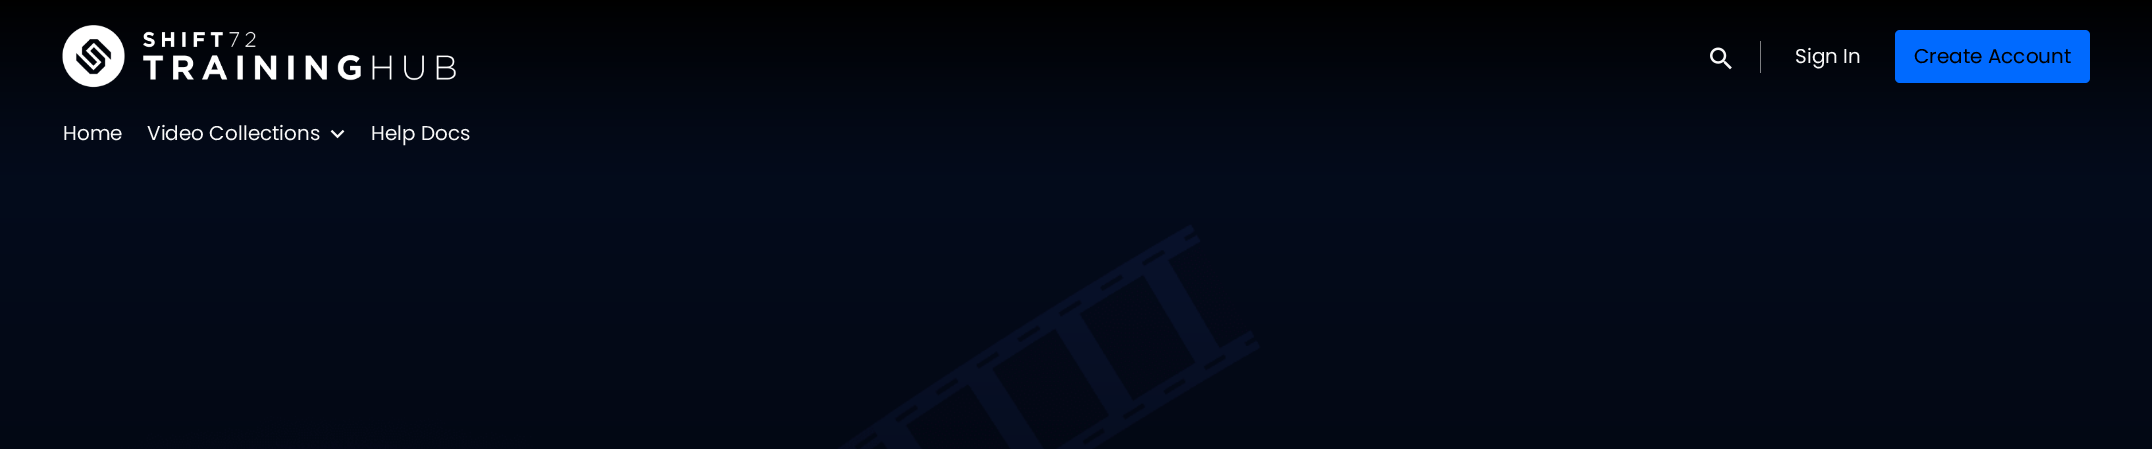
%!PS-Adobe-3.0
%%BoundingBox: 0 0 2152 449
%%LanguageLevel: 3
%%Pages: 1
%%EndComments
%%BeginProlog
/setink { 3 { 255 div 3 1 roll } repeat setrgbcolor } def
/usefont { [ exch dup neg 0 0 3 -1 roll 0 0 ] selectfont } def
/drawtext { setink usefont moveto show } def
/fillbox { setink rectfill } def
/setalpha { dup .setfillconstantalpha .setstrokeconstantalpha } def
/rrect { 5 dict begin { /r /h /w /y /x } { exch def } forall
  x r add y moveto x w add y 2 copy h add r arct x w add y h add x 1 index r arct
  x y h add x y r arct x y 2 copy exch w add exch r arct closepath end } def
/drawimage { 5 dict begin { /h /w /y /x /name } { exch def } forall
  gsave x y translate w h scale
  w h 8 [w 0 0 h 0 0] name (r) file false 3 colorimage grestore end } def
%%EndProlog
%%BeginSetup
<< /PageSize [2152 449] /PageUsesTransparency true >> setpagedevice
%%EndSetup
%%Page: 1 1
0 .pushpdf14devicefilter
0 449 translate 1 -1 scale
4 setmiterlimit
0 0 2152 449 255 255 255 fillbox
(assets/img1.rgb) 0 0 2152 449 drawimage
(assets/img2.rgb) 62 25 394 63 drawimage
(assets/img3.rgb) 1710 47 22 23 drawimage
0.5 setalpha
1760 41 1 32 248 248 248 fillbox
1 setalpha
(Sign In) 1795 63 /Poppins-Regular 20 248 248 248 drawtext
0 106 255 setink
1895 30 195 53 5 rrect fill
(Create Account) 1914 63 /Poppins-Regular 20 0 0 0 drawtext
(Home) 63 140 /Poppins-Regular 20 248 248 248 drawtext
(Video Collections) 147 140 /Poppins-Regular 20 248 248 248 drawtext
(assets/img4.rgb) 330 129 15 10 drawimage
(Help Docs) 371 140 /Poppins-Regular 20 248 248 248 drawtext
.poppdf14devicefilter showpage
%%EOF
